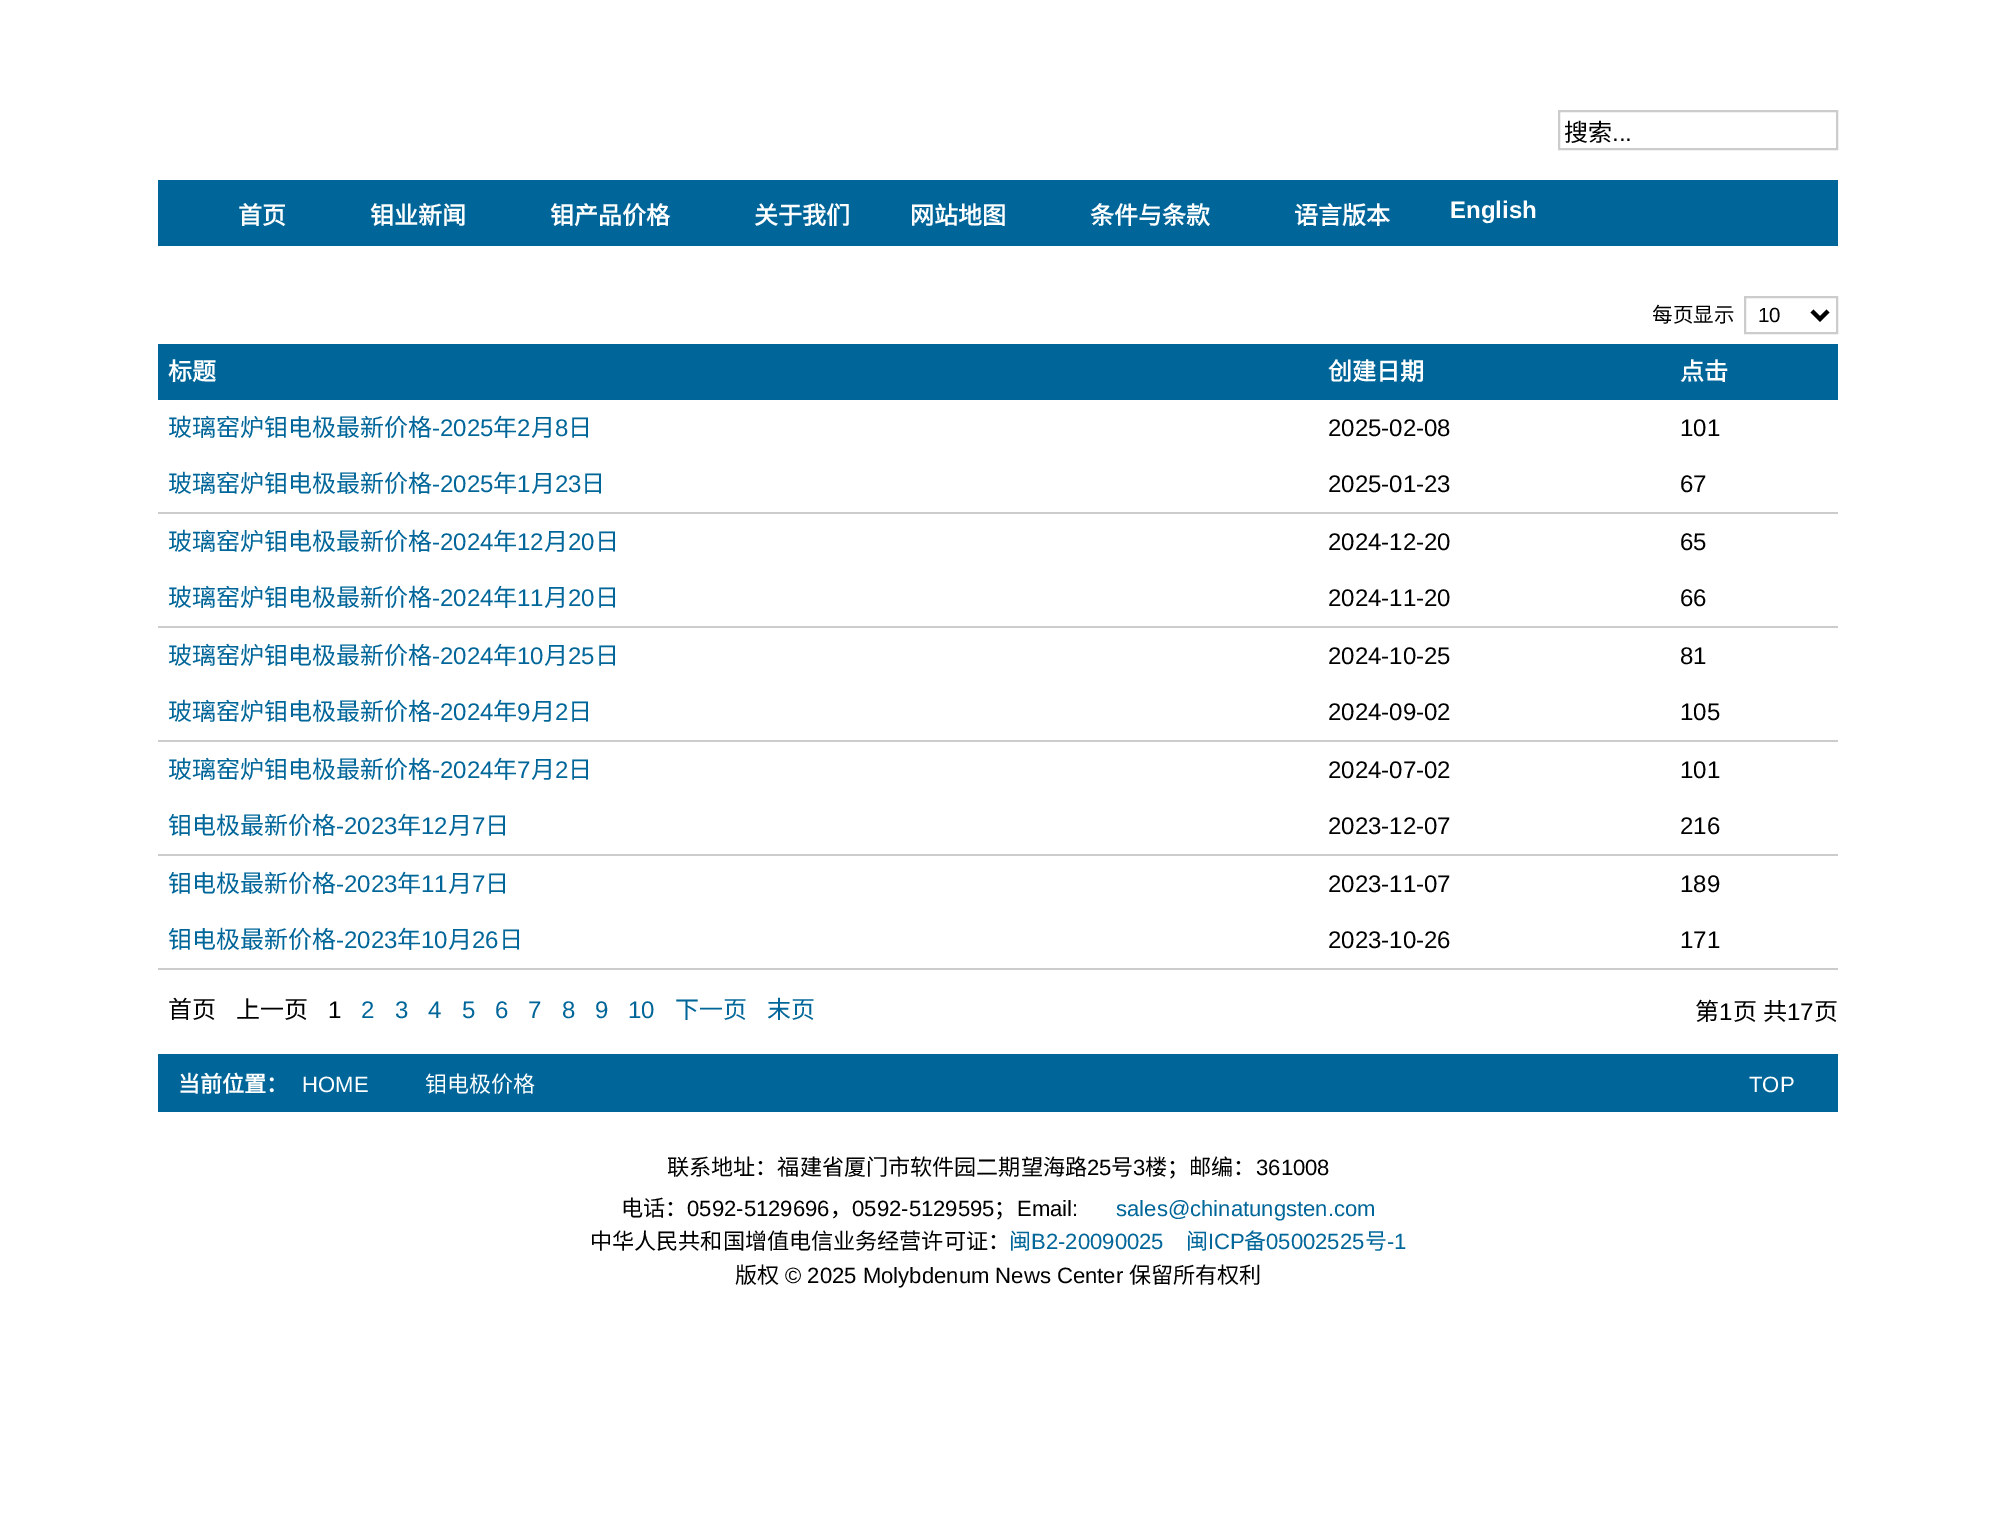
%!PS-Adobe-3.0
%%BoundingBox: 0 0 1995 1528
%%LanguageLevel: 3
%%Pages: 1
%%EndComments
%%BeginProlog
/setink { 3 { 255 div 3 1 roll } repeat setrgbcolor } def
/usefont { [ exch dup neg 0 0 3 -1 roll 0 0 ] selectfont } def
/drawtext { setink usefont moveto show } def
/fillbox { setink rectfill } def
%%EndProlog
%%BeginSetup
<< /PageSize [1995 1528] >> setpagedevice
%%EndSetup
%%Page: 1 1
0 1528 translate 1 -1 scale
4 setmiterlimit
0 0 1995 1528 255 255 255 fillbox
204 204 204 setink
2 setlinewidth
1559 111 278 38 rectstroke
(搜索) 1564 141 /NotoSansCJKSC-Regular 24 0 0 0 drawtext
(...) 1612 141 /LiberationSans-Regular 24 0 0 0 drawtext
158 180 1680 66 0 102 153 fillbox
(首页) 238 224 /NotoSansCJKSC-Bold 24 255 255 255 drawtext
(钼业新闻) 370 224 /NotoSansCJKSC-Bold 24 255 255 255 drawtext
(钼产品价格) 550 224 /NotoSansCJKSC-Bold 24 255 255 255 drawtext
(关于我们) 754 224 /NotoSansCJKSC-Bold 24 255 255 255 drawtext
(网站地图) 910 224 /NotoSansCJKSC-Bold 24 255 255 255 drawtext
(条件与条款) 1090 224 /NotoSansCJKSC-Bold 24 255 255 255 drawtext
(语言版本) 1294 224 /NotoSansCJKSC-Bold 24 255 255 255 drawtext
(English) 1450 218 /LiberationSans-Bold 24 255 255 255 drawtext
(每页显示) 1652 322 /NotoSansCJKSC-Regular 20.5 0 0 0 drawtext
204 204 204 setink
1745 297 92 36 rectstroke
0 0 0 setink
4 setlinewidth
1812 311 moveto 1820 319 lineto 1828 311 lineto stroke
(10) 1758 322 /LiberationSans-Regular 20.5 0 0 0 drawtext
158 344 1680 56 0 102 153 fillbox
(标题) 168 380 /NotoSansCJKSC-Bold 24 255 255 255 drawtext
(创建日期) 1328 380 /NotoSansCJKSC-Bold 24 255 255 255 drawtext
(点击) 1680 380 /NotoSansCJKSC-Bold 24 255 255 255 drawtext
(玻璃窑炉钼电极最新价格) 168 436 /NotoSansCJKSC-Regular 24 0 102 153 drawtext
(-2025) 432 436 /LiberationSans-Regular 24 0 102 153 drawtext
(年) 493 436 /NotoSansCJKSC-Regular 24 0 102 153 drawtext
(2) 517 436 /LiberationSans-Regular 24 0 102 153 drawtext
(月) 531 436 /NotoSansCJKSC-Regular 24 0 102 153 drawtext
(8) 555 436 /LiberationSans-Regular 24 0 102 153 drawtext
(日) 568 436 /NotoSansCJKSC-Regular 24 0 102 153 drawtext
(2025-02-08) 1328 436 /LiberationSans-Regular 24 0 0 0 drawtext
(101) 1680 436 /LiberationSans-Regular 24 0 0 0 drawtext
158 512 1680 2 204 204 204 fillbox
(玻璃窑炉钼电极最新价格) 168 492 /NotoSansCJKSC-Regular 24 0 102 153 drawtext
(-2025) 432 492 /LiberationSans-Regular 24 0 102 153 drawtext
(年) 493 492 /NotoSansCJKSC-Regular 24 0 102 153 drawtext
(1) 517 492 /LiberationSans-Regular 24 0 102 153 drawtext
(月) 531 492 /NotoSansCJKSC-Regular 24 0 102 153 drawtext
(23) 555 492 /LiberationSans-Regular 24 0 102 153 drawtext
(日) 581 492 /NotoSansCJKSC-Regular 24 0 102 153 drawtext
(2025-01-23) 1328 492 /LiberationSans-Regular 24 0 0 0 drawtext
(67) 1680 492 /LiberationSans-Regular 24 0 0 0 drawtext
(玻璃窑炉钼电极最新价格) 168 550 /NotoSansCJKSC-Regular 24 0 102 153 drawtext
(-2024) 432 550 /LiberationSans-Regular 24 0 102 153 drawtext
(年) 493 550 /NotoSansCJKSC-Regular 24 0 102 153 drawtext
(12) 517 550 /LiberationSans-Regular 24 0 102 153 drawtext
(月) 544 550 /NotoSansCJKSC-Regular 24 0 102 153 drawtext
(20) 568 550 /LiberationSans-Regular 24 0 102 153 drawtext
(日) 595 550 /NotoSansCJKSC-Regular 24 0 102 153 drawtext
(2024-12-20) 1328 550 /LiberationSans-Regular 24 0 0 0 drawtext
(65) 1680 550 /LiberationSans-Regular 24 0 0 0 drawtext
158 626 1680 2 204 204 204 fillbox
(玻璃窑炉钼电极最新价格) 168 606 /NotoSansCJKSC-Regular 24 0 102 153 drawtext
(-2024) 432 606 /LiberationSans-Regular 24 0 102 153 drawtext
(年) 493 606 /NotoSansCJKSC-Regular 24 0 102 153 drawtext
(11) 517 606 /LiberationSans-Regular 24 0 102 153 drawtext
(月) 544 606 /NotoSansCJKSC-Regular 24 0 102 153 drawtext
(20) 568 606 /LiberationSans-Regular 24 0 102 153 drawtext
(日) 595 606 /NotoSansCJKSC-Regular 24 0 102 153 drawtext
(2024-11-20) 1328 606 /LiberationSans-Regular 24 0 0 0 drawtext
(66) 1680 606 /LiberationSans-Regular 24 0 0 0 drawtext
(玻璃窑炉钼电极最新价格) 168 664 /NotoSansCJKSC-Regular 24 0 102 153 drawtext
(-2024) 432 664 /LiberationSans-Regular 24 0 102 153 drawtext
(年) 493 664 /NotoSansCJKSC-Regular 24 0 102 153 drawtext
(10) 517 664 /LiberationSans-Regular 24 0 102 153 drawtext
(月) 544 664 /NotoSansCJKSC-Regular 24 0 102 153 drawtext
(25) 568 664 /LiberationSans-Regular 24 0 102 153 drawtext
(日) 595 664 /NotoSansCJKSC-Regular 24 0 102 153 drawtext
(2024-10-25) 1328 664 /LiberationSans-Regular 24 0 0 0 drawtext
(81) 1680 664 /LiberationSans-Regular 24 0 0 0 drawtext
158 740 1680 2 204 204 204 fillbox
(玻璃窑炉钼电极最新价格) 168 720 /NotoSansCJKSC-Regular 24 0 102 153 drawtext
(-2024) 432 720 /LiberationSans-Regular 24 0 102 153 drawtext
(年) 493 720 /NotoSansCJKSC-Regular 24 0 102 153 drawtext
(9) 517 720 /LiberationSans-Regular 24 0 102 153 drawtext
(月) 531 720 /NotoSansCJKSC-Regular 24 0 102 153 drawtext
(2) 555 720 /LiberationSans-Regular 24 0 102 153 drawtext
(日) 568 720 /NotoSansCJKSC-Regular 24 0 102 153 drawtext
(2024-09-02) 1328 720 /LiberationSans-Regular 24 0 0 0 drawtext
(105) 1680 720 /LiberationSans-Regular 24 0 0 0 drawtext
(玻璃窑炉钼电极最新价格) 168 778 /NotoSansCJKSC-Regular 24 0 102 153 drawtext
(-2024) 432 778 /LiberationSans-Regular 24 0 102 153 drawtext
(年) 493 778 /NotoSansCJKSC-Regular 24 0 102 153 drawtext
(7) 517 778 /LiberationSans-Regular 24 0 102 153 drawtext
(月) 531 778 /NotoSansCJKSC-Regular 24 0 102 153 drawtext
(2) 555 778 /LiberationSans-Regular 24 0 102 153 drawtext
(日) 568 778 /NotoSansCJKSC-Regular 24 0 102 153 drawtext
(2024-07-02) 1328 778 /LiberationSans-Regular 24 0 0 0 drawtext
(101) 1680 778 /LiberationSans-Regular 24 0 0 0 drawtext
158 854 1680 2 204 204 204 fillbox
(钼电极最新价格) 168 834 /NotoSansCJKSC-Regular 24 0 102 153 drawtext
(-2023) 336 834 /LiberationSans-Regular 24 0 102 153 drawtext
(年) 397 834 /NotoSansCJKSC-Regular 24 0 102 153 drawtext
(12) 421 834 /LiberationSans-Regular 24 0 102 153 drawtext
(月) 448 834 /NotoSansCJKSC-Regular 24 0 102 153 drawtext
(7) 472 834 /LiberationSans-Regular 24 0 102 153 drawtext
(日) 485 834 /NotoSansCJKSC-Regular 24 0 102 153 drawtext
(2023-12-07) 1328 834 /LiberationSans-Regular 24 0 0 0 drawtext
(216) 1680 834 /LiberationSans-Regular 24 0 0 0 drawtext
(钼电极最新价格) 168 892 /NotoSansCJKSC-Regular 24 0 102 153 drawtext
(-2023) 336 892 /LiberationSans-Regular 24 0 102 153 drawtext
(年) 397 892 /NotoSansCJKSC-Regular 24 0 102 153 drawtext
(11) 421 892 /LiberationSans-Regular 24 0 102 153 drawtext
(月) 448 892 /NotoSansCJKSC-Regular 24 0 102 153 drawtext
(7) 472 892 /LiberationSans-Regular 24 0 102 153 drawtext
(日) 485 892 /NotoSansCJKSC-Regular 24 0 102 153 drawtext
(2023-11-07) 1328 892 /LiberationSans-Regular 24 0 0 0 drawtext
(189) 1680 892 /LiberationSans-Regular 24 0 0 0 drawtext
158 968 1680 2 204 204 204 fillbox
(钼电极最新价格) 168 948 /NotoSansCJKSC-Regular 24 0 102 153 drawtext
(-2023) 336 948 /LiberationSans-Regular 24 0 102 153 drawtext
(年) 397 948 /NotoSansCJKSC-Regular 24 0 102 153 drawtext
(10) 421 948 /LiberationSans-Regular 24 0 102 153 drawtext
(月) 448 948 /NotoSansCJKSC-Regular 24 0 102 153 drawtext
(26) 472 948 /LiberationSans-Regular 24 0 102 153 drawtext
(日) 499 948 /NotoSansCJKSC-Regular 24 0 102 153 drawtext
(2023-10-26) 1328 948 /LiberationSans-Regular 24 0 0 0 drawtext
(171) 1680 948 /LiberationSans-Regular 24 0 0 0 drawtext
(首页) 168 1018 /NotoSansCJKSC-Regular 24 0 0 0 drawtext
(上一页) 236 1018 /NotoSansCJKSC-Regular 24 0 0 0 drawtext
(1) 328 1018 /LiberationSans-Regular 24 0 0 0 drawtext
(2) 361 1018 /LiberationSans-Regular 24 0 102 153 drawtext
(3) 395 1018 /LiberationSans-Regular 24 0 102 153 drawtext
(4) 428 1018 /LiberationSans-Regular 24 0 102 153 drawtext
(5) 462 1018 /LiberationSans-Regular 24 0 102 153 drawtext
(6) 495 1018 /LiberationSans-Regular 24 0 102 153 drawtext
(7) 528 1018 /LiberationSans-Regular 24 0 102 153 drawtext
(8) 562 1018 /LiberationSans-Regular 24 0 102 153 drawtext
(9) 595 1018 /LiberationSans-Regular 24 0 102 153 drawtext
(10) 628 1018 /LiberationSans-Regular 24 0 102 153 drawtext
(下一页) 675 1018 /NotoSansCJKSC-Regular 24 0 102 153 drawtext
(末页) 767 1018 /NotoSansCJKSC-Regular 24 0 102 153 drawtext
(第) 1695 1020 /NotoSansCJKSC-Regular 24 0 0 0 drawtext
(1) 1719 1020 /LiberationSans-Regular 24 0 0 0 drawtext
/NotoSansCJKSC-Regular 24 usefont
1733 1020 moveto 1 0 32 (页 共) widthshow
(17) 1787 1020 /LiberationSans-Regular 24 0 0 0 drawtext
(页) 1814 1020 /NotoSansCJKSC-Regular 24 0 0 0 drawtext
158 1054 1680 58 0 102 153 fillbox
(当前位置：) 178 1092 /NotoSansCJKSC-Bold 22.1 255 255 255 drawtext
(HOME) 302 1092 /LiberationSans-Regular 22.1 255 255 255 drawtext
(钼电极价格) 425 1092 /NotoSansCJKSC-Regular 22.1 255 255 255 drawtext
(TOP) 1749 1092 /LiberationSans-Regular 22.1 255 255 255 drawtext
(联系地址：福建省厦门市软件园二期望海路) 667 1175 /NotoSansCJKSC-Regular 22.1 0 0 0 drawtext
(25) 1087 1175 /LiberationSans-Regular 22.1 0 0 0 drawtext
(号) 1111 1175 /NotoSansCJKSC-Regular 22.1 0 0 0 drawtext
(3) 1133 1175 /LiberationSans-Regular 22.1 0 0 0 drawtext
(楼；邮编：) 1145 1175 /NotoSansCJKSC-Regular 22.1 0 0 0 drawtext
(361008) 1256 1175 /LiberationSans-Regular 22.1 0 0 0 drawtext
(电话：) 621 1216 /NotoSansCJKSC-Regular 22.1 0 0 0 drawtext
(0592-5129696) 687 1216 /LiberationSans-Regular 22.1 0 0 0 drawtext
(，) 830 1216 /NotoSansCJKSC-Regular 22.1 0 0 0 drawtext
(0592-5129595) 852 1216 /LiberationSans-Regular 22.1 0 0 0 drawtext
(；) 994 1216 /NotoSansCJKSC-Regular 22.1 0 0 0 drawtext
(Email:) 1017 1216 /LiberationSans-Regular 22.1 0 0 0 drawtext
(sales@chinatungsten.com) 1116 1216 /LiberationSans-Regular 22.1 0 102 153 drawtext
(中华人民共和国增值电信业务经营许可证：) 590 1249 /NotoSansCJKSC-Regular 22.1 0 0 0 drawtext
(闽) 1009 1249 /NotoSansCJKSC-Regular 22.1 0 102 153 drawtext
(B2-20090025) 1031 1249 /LiberationSans-Regular 22.1 0 102 153 drawtext
(闽) 1186 1249 /NotoSansCJKSC-Regular 22.1 0 102 153 drawtext
(ICP) 1208 1249 /LiberationSans-Regular 22.1 0 102 153 drawtext
(备) 1244 1249 /NotoSansCJKSC-Regular 22.1 0 102 153 drawtext
(05002525) 1266 1249 /LiberationSans-Regular 22.1 0 102 153 drawtext
(号) 1365 1249 /NotoSansCJKSC-Regular 22.1 0 102 153 drawtext
(-1) 1387 1249 /LiberationSans-Regular 22.1 0 102 153 drawtext
(版权) 735 1283 /NotoSansCJKSC-Regular 22.1 0 0 0 drawtext
(© 2025 Molybdenum News Center) 785 1283 /LiberationSans-Regular 22.1 0 0 0 drawtext
(保留所有权利) 1129 1283 /NotoSansCJKSC-Regular 22.1 0 0 0 drawtext
showpage
%%EOF
